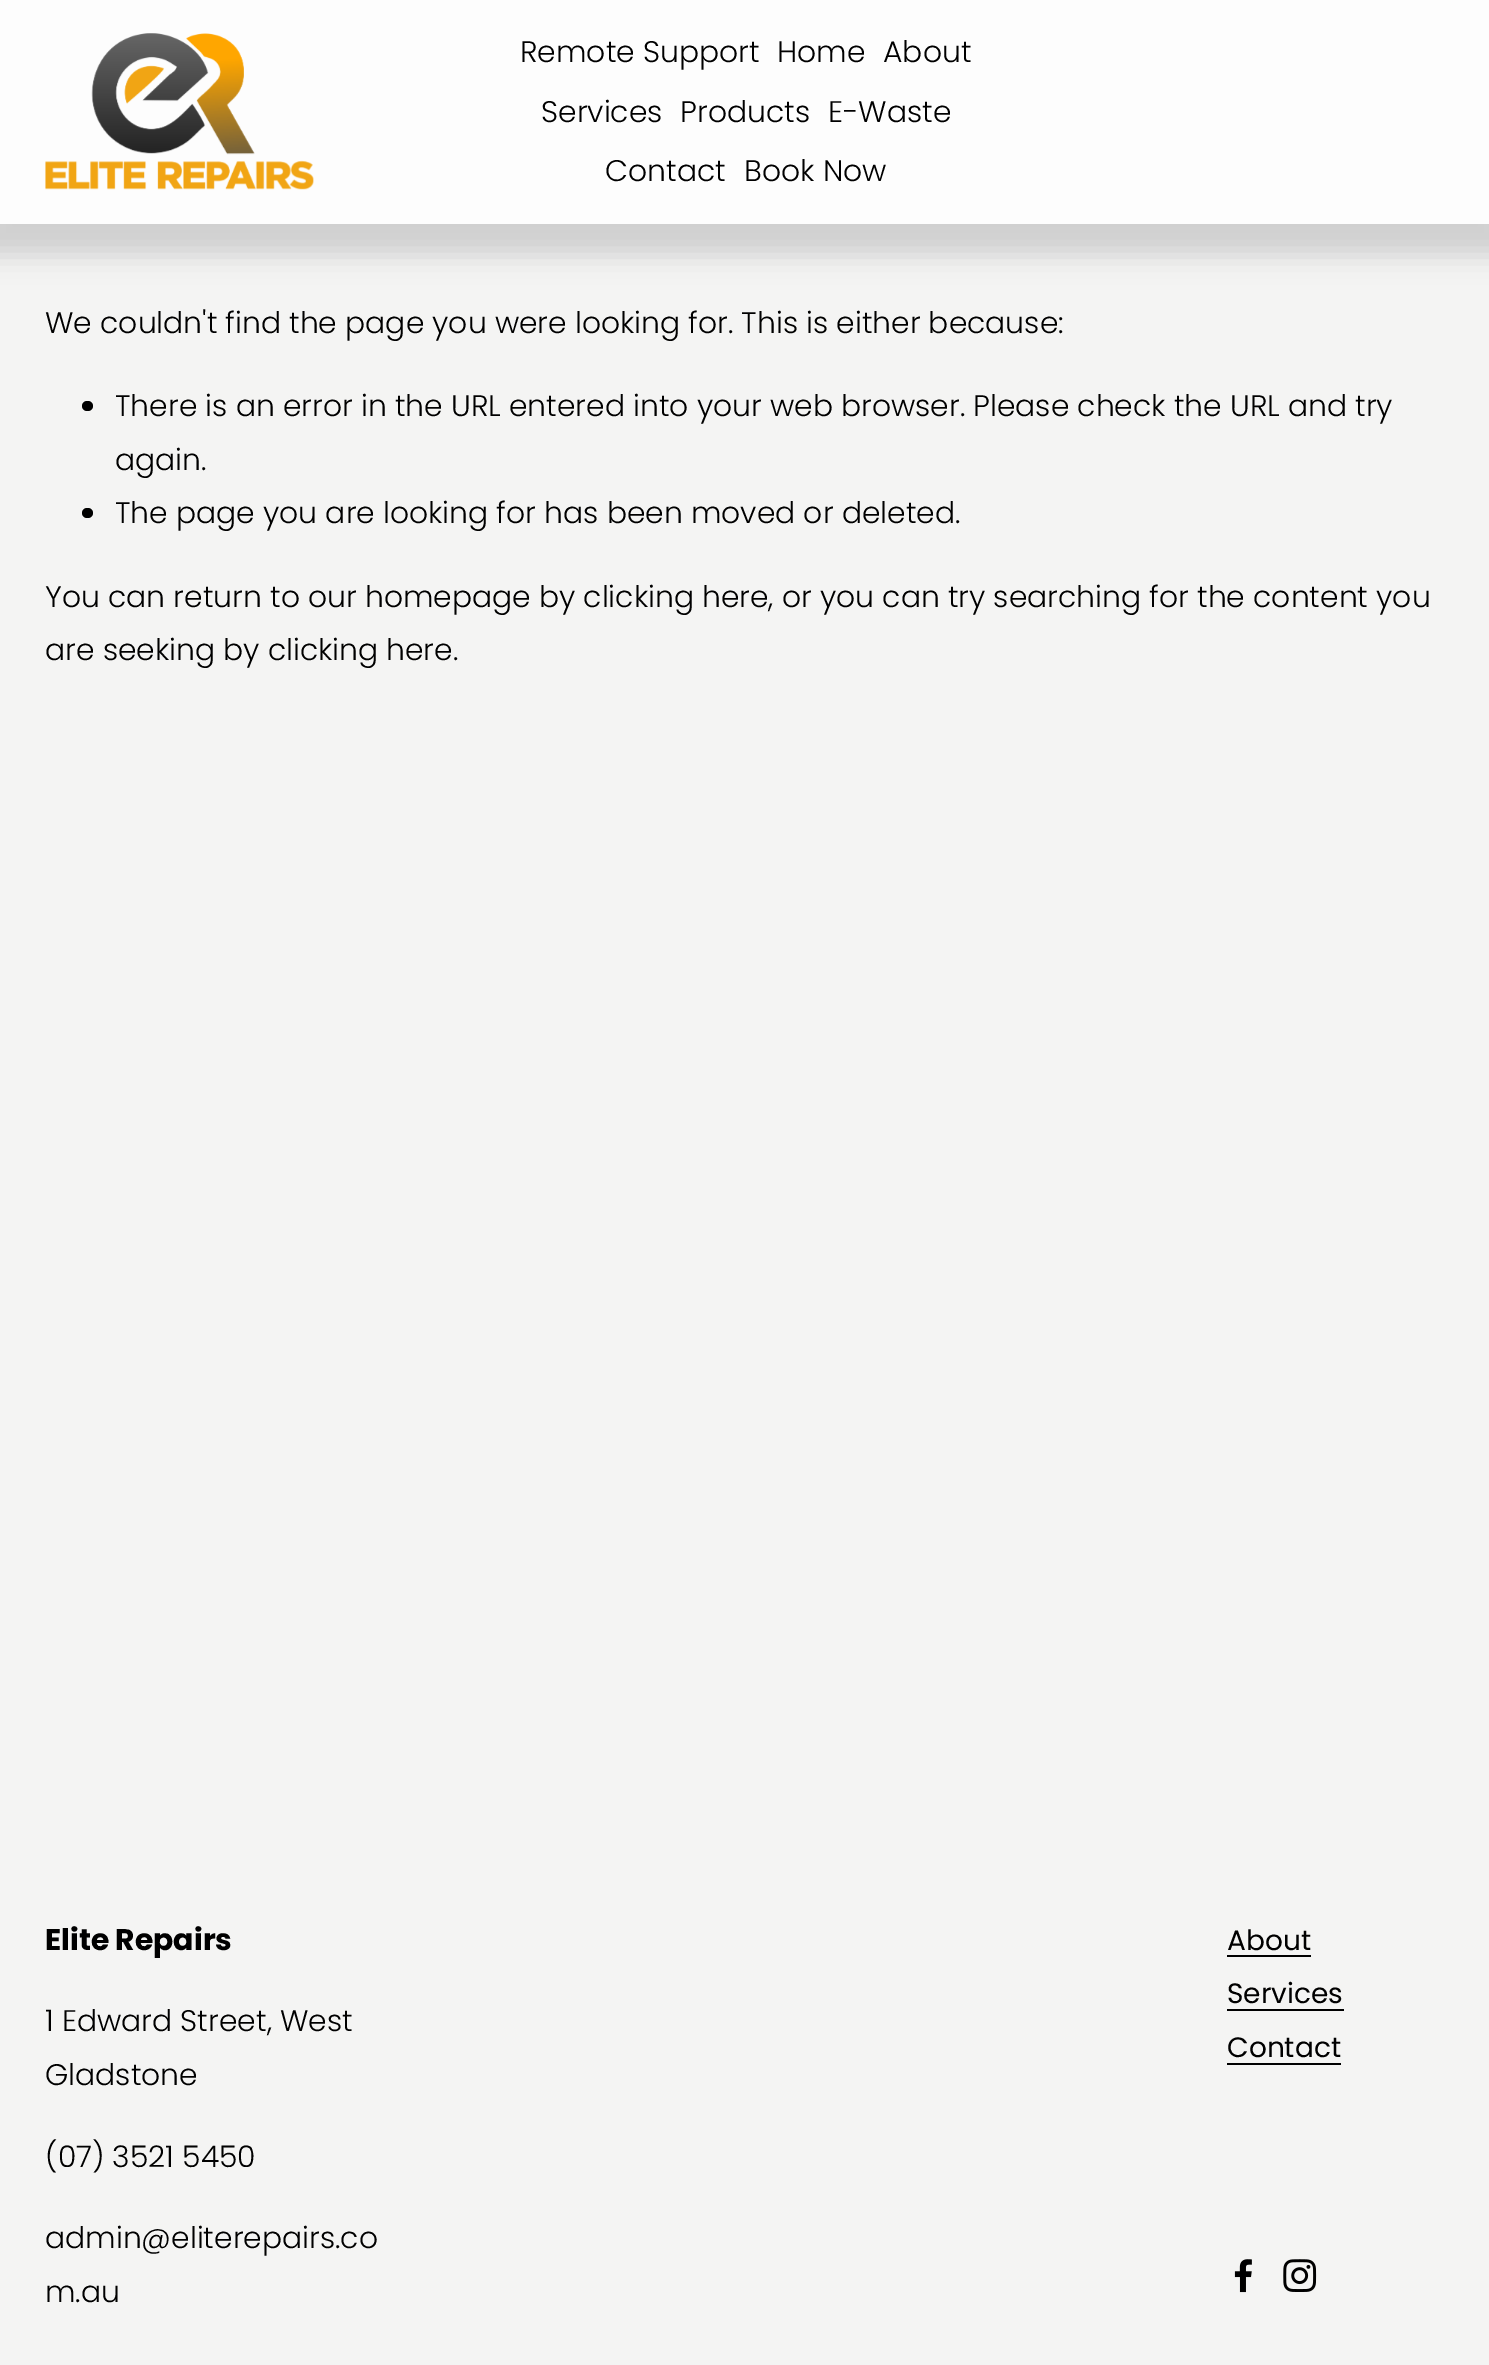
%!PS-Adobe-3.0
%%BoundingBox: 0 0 1489 2365
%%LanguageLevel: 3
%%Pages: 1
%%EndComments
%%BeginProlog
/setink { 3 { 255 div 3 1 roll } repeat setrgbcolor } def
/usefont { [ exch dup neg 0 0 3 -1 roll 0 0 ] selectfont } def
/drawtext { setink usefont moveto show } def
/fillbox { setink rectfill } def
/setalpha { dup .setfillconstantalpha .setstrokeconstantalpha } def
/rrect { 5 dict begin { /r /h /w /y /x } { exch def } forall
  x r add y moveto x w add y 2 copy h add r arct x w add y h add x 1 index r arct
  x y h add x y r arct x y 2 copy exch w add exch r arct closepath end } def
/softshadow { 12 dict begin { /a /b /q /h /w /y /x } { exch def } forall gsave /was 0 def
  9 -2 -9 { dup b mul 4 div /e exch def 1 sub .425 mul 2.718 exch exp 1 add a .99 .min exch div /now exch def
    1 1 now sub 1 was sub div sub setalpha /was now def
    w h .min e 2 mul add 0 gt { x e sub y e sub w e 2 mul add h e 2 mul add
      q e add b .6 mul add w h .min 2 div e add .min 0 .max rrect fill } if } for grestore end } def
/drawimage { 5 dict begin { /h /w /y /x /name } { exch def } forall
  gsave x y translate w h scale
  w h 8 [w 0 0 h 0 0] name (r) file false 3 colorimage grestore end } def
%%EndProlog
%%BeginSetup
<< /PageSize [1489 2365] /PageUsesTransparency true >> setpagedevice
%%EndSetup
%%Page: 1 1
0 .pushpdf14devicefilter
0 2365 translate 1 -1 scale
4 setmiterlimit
0 0 1489 2365 244 244 243 fillbox
207 207 207 setink
-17 -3 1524 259 0 13 1 softshadow
0 0 1489 224 253 253 253 fillbox
(assets/img1.rgb) 45 33 269 157 drawimage
(Remote Support) 520 62 /Poppins-Light 29.8 0 0 0 drawtext
(Home) 777 62 /Poppins-Light 29.8 0 0 0 drawtext
(About) 883 62 /Poppins-Light 29.8 0 0 0 drawtext
(Services) 541 122 /Poppins-Light 29.8 0 0 0 drawtext
(Products) 680 122 /Poppins-Light 29.8 0 0 0 drawtext
(E-Waste) 828 122 /Poppins-Light 29.8 0 0 0 drawtext
(Contact) 605 181 /Poppins-Light 29.8 0 0 0 drawtext
(Book Now) 744 181 /Poppins-Light 29.8 0 0 0 drawtext
(We couldn't find the page you were looking for. This is either because:) 45 333 /Poppins-Light 29.8 0 0 0 drawtext
82 401 11 10 5 rrect fill
(There is an error in the URL entered into your web browser. Please check the URL and try) 115 416 /Poppins-Light 29.8 0 0 0 drawtext
(again.) 115 470 /Poppins-Light 29.8 0 0 0 drawtext
82 508 11 10 5 rrect fill
(The page you are looking for has been moved or deleted.) 115 523 /Poppins-Light 29.8 0 0 0 drawtext
(You can return to our homepage by clicking here, or you can try searching for the content you) 45 607 /Poppins-Light 29.8 0 0 0 drawtext
(are seeking by clicking here.) 45 660 /Poppins-Light 29.8 0 0 0 drawtext
(Elite Repairs) 45 1950 /Poppins-Bold 29.8 0 0 0 drawtext
(1 Edward Street, West) 45 2031 /Poppins-Light 29.8 0 0 0 drawtext
(Gladstone) 45 2085 /Poppins-Light 29.8 0 0 0 drawtext
(\(07\) 3521 5450) 45 2167 /Poppins-Light 29.8 0 0 0 drawtext
(admin@eliterepairs.co) 45 2248 /Poppins-Light 29.8 0 0 0 drawtext
(m.au) 45 2302 /Poppins-Light 29.8 0 0 0 drawtext
(About) 1227 1950 /Poppins-Regular 28 0 0 0 drawtext
1227 1955 84 2 0 0 0 fillbox
(Services) 1227 2003 /Poppins-Regular 28 0 0 0 drawtext
1227 2009 117 2 0 0 0 fillbox
(Contact) 1227 2057 /Poppins-Regular 28 0 0 0 drawtext
1227 2063 114 2 0 0 0 fillbox
(assets/img2.rgb) 1234 2259 18 34 drawimage
(assets/img3.rgb) 1283 2259 34 33 drawimage
.poppdf14devicefilter showpage
%%EOF
